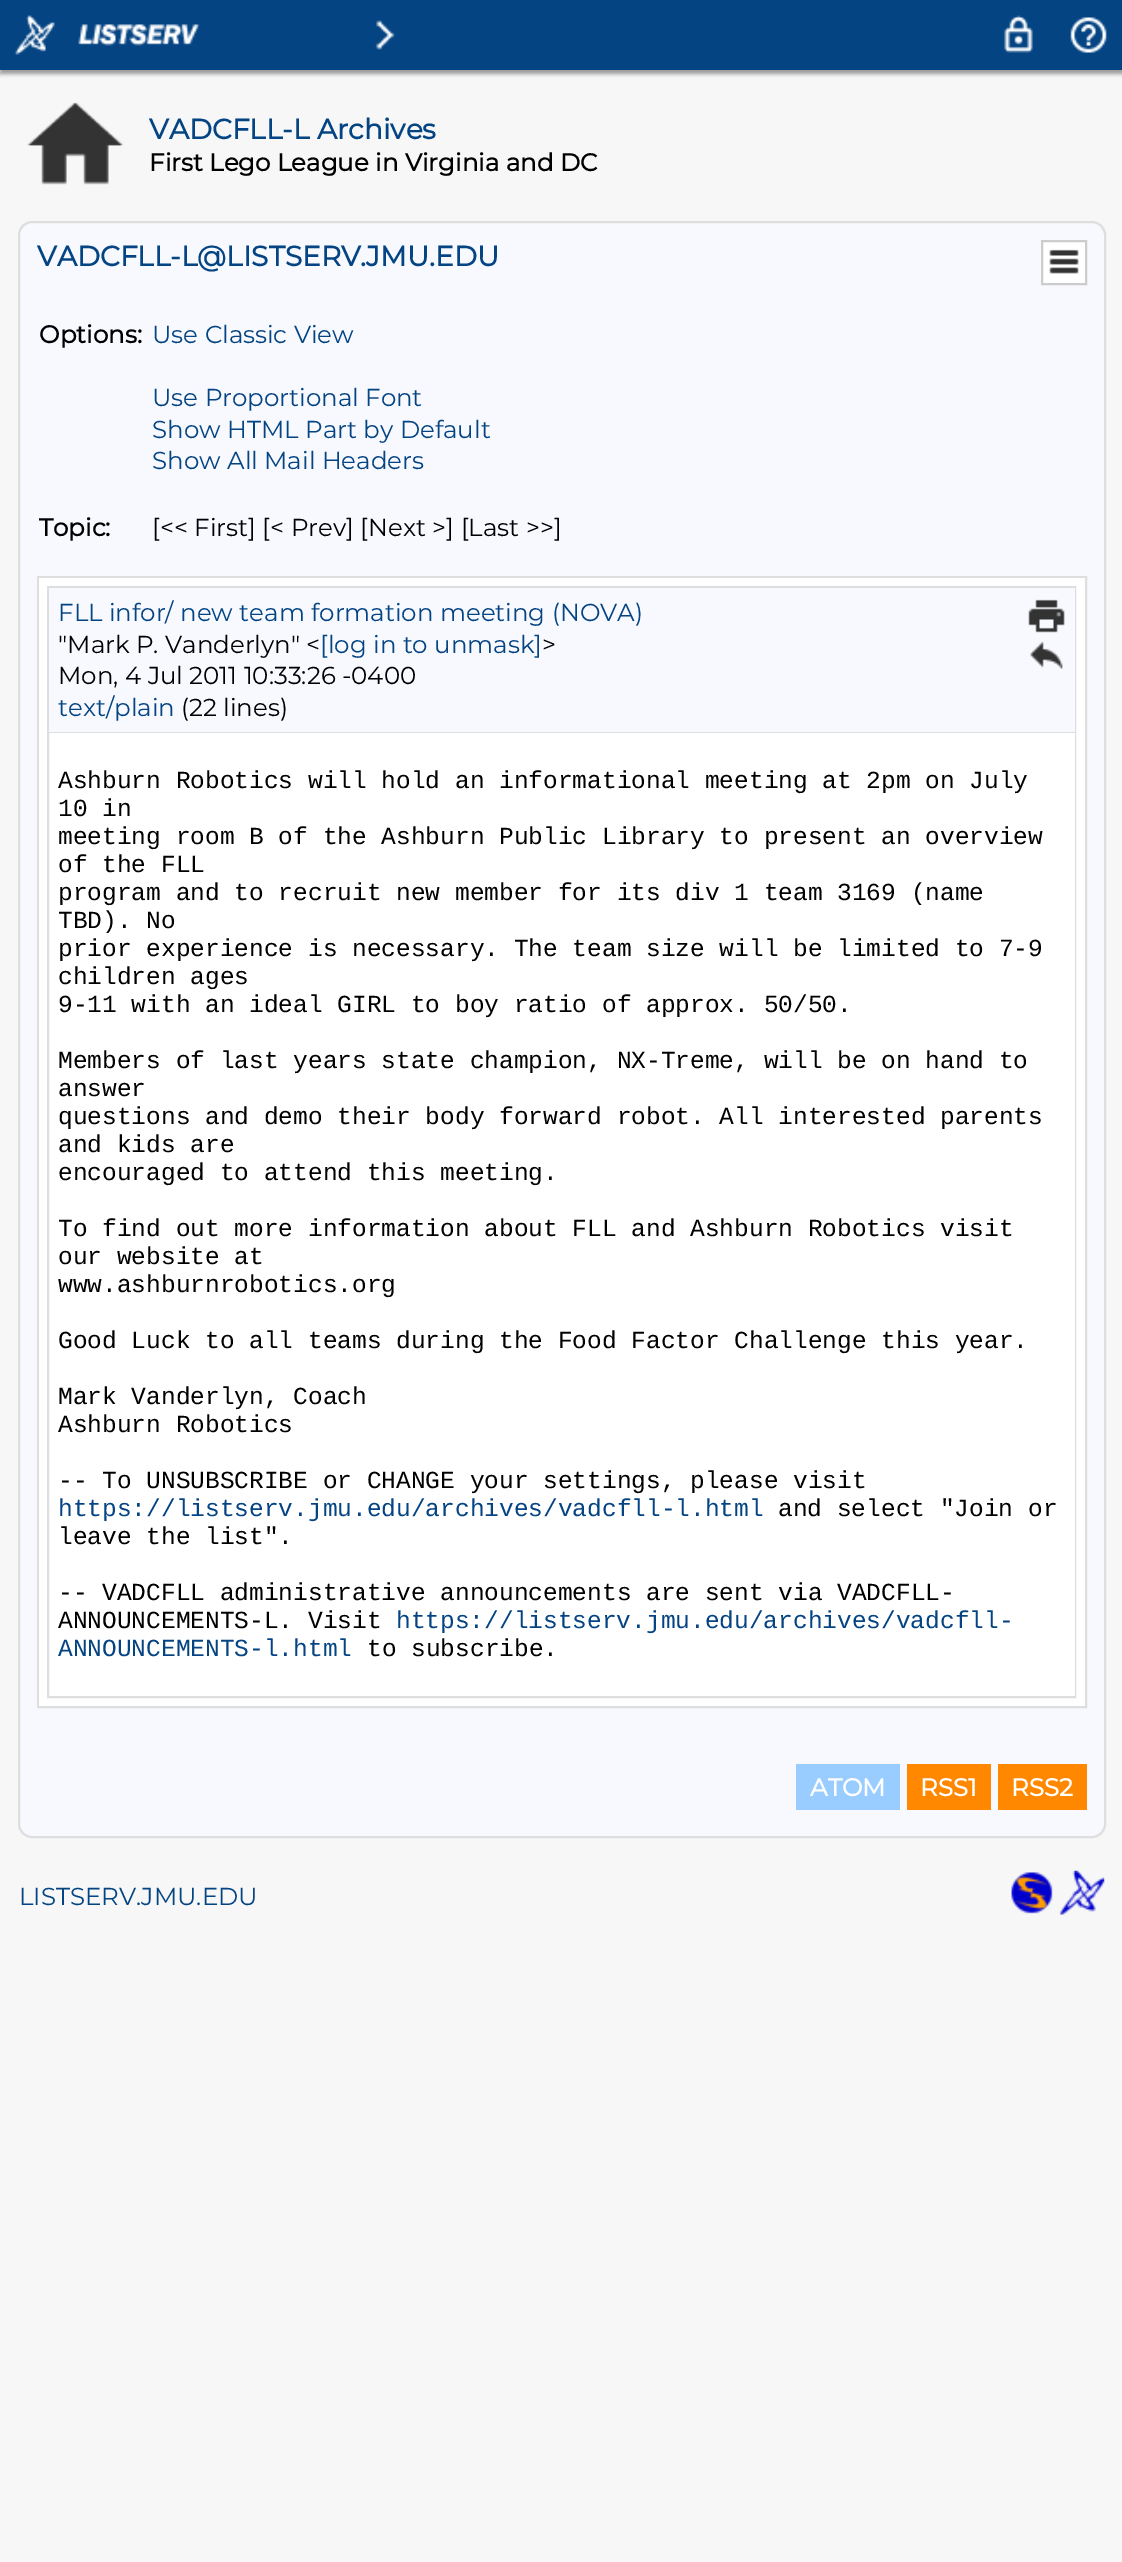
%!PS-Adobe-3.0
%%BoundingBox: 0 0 1122 2562
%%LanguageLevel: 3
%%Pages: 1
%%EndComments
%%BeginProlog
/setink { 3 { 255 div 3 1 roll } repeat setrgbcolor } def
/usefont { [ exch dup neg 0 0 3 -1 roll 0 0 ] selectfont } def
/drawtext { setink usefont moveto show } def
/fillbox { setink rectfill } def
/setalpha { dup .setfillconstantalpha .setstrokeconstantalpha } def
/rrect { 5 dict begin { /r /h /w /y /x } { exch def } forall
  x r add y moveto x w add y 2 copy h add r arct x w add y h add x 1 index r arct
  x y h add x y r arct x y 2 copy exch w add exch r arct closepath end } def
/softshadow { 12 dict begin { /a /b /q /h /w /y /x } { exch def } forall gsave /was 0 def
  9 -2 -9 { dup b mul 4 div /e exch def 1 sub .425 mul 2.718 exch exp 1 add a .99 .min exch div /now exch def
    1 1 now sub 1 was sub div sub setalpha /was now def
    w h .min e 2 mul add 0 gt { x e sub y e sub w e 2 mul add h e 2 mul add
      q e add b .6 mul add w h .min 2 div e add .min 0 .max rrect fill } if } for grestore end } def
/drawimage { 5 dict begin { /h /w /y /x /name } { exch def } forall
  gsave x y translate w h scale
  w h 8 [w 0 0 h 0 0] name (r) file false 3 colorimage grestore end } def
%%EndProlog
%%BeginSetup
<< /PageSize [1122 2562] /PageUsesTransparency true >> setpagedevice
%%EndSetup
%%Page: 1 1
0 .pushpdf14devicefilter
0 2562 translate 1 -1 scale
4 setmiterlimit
0 0 1122 2562 247 247 247 fillbox
153 153 153 setink
0 4 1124 70 0 2 1 softshadow
0 0 1122 70 5 68 131 fillbox
(assets/img1.rgb) 15 15 40 40 drawimage
(assets/img2.rgb) 78 24 122 22 drawimage
(assets/img3.rgb) 375 20 20 30 drawimage
(assets/img4.rgb) 1004 15 29 38 drawimage
(assets/img5.rgb) 1070 17 37 36 drawimage
(assets/img6.rgb) 27 102 96 83 drawimage
(VADCFLL-L Archives) 149 139 /Montserrat-Bold 28 5 68 131 drawtext
(First Lego League in Virginia and DC) 149 171 /Montserrat-Bold 24.5 0 0 0 drawtext
247 249 254 setink
19 222 1086 1615 13 rrect gsave fill grestore
222 222 222 setink
2 setlinewidth
stroke
(VADCFLL-L@LISTSERV.JMU.EDU) 37 266 /Montserrat-Bold 28 5 68 131 drawtext
255 255 255 setink
1042 241 moveto 1086 241 lineto 1086 284 lineto 1042 284 lineto closepath gsave fill grestore
204 204 204 setink
stroke
(assets/img7.rgb) 1049 249 30 25 drawimage
(Options:) 39 343 /Montserrat-Bold 24.5 0 0 0 drawtext
(Use Classic View) 152 343 /Montserrat-Thin 24.5 5 68 131 drawtext
(Use Proportional Font) 152 406 /Montserrat-Thin 24.5 5 68 131 drawtext
(Show HTML Part by Default) 152 438 /Montserrat-Thin 24.5 5 68 131 drawtext
(Show All Mail Headers) 152 469 /Montserrat-Thin 24.5 5 68 131 drawtext
(Topic:) 39 536 /Montserrat-Bold 24.5 0 0 0 drawtext
([<< First] [< Prev] [Next >] [Last >>]) 152 536 /Montserrat-Thin 24.5 0 0 0 drawtext
222 222 222 setink
38 577 1048 1130 rectstroke
39 578 1046 1128 255 255 255 fillbox
222 222 222 setink
48 587 1027 1110 rectstroke
49 588 1026 144 247 249 254 fillbox
49 732 1026 1 222 222 222 fillbox
(FLL infor/ new team formation meeting \(NOVA\)) 58 621 /Montserrat-Thin 24.5 5 68 131 drawtext
(assets/img8.rgb) 1028 599 37 34 drawimage
(assets/img9.rgb) 1030 641 33 28 drawimage
("Mark P. Vanderlyn" <) 58 653 /Montserrat-Thin 24.5 0 0 0 drawtext
([log in to unmask]) 320 653 /Montserrat-Thin 24.5 5 68 131 drawtext
(>) 542 653 /Montserrat-Thin 24.5 0 0 0 drawtext
(Mon, 4 Jul 2011 10:33:26 -0400) 58 684 /Montserrat-Thin 24.5 0 0 0 drawtext
(text/plain) 58 716 /Montserrat-Thin 24.5 5 68 131 drawtext
(\(22 lines\)) 181 716 /Montserrat-Thin 24.5 0 0 0 drawtext
1074 733 1 963 255 255 255 fillbox
(Ashburn Robotics will hold an informational meeting at 2pm on July) 58 788 /LiberationMono-Regular 24.5 0 0 0 drawtext
(10 in) 58 816 /LiberationMono-Regular 24.5 0 0 0 drawtext
(meeting room B of the Ashburn Public Library to present an overview) 58 844 /LiberationMono-Regular 24.5 0 0 0 drawtext
(of the FLL) 58 872 /LiberationMono-Regular 24.5 0 0 0 drawtext
(program and to recruit new member for its div 1 team 3169 \(name) 58 900 /LiberationMono-Regular 24.5 0 0 0 drawtext
(TBD\). No) 58 928 /LiberationMono-Regular 24.5 0 0 0 drawtext
(prior experience is necessary. The team size will be limited to 7-9) 58 956 /LiberationMono-Regular 24.5 0 0 0 drawtext
(children ages) 58 984 /LiberationMono-Regular 24.5 0 0 0 drawtext
(9-11 with an ideal GIRL to boy ratio of approx. 50/50.) 58 1012 /LiberationMono-Regular 24.5 0 0 0 drawtext
(Members of last years state champion, NX-Treme, will be on hand to) 58 1068 /LiberationMono-Regular 24.5 0 0 0 drawtext
(answer) 58 1096 /LiberationMono-Regular 24.5 0 0 0 drawtext
(questions and demo their body forward robot. All interested parents) 58 1124 /LiberationMono-Regular 24.5 0 0 0 drawtext
(and kids are) 58 1152 /LiberationMono-Regular 24.5 0 0 0 drawtext
(encouraged to attend this meeting.) 58 1180 /LiberationMono-Regular 24.5 0 0 0 drawtext
(To find out more information about FLL and Ashburn Robotics visit) 58 1236 /LiberationMono-Regular 24.5 0 0 0 drawtext
(our website at) 58 1264 /LiberationMono-Regular 24.5 0 0 0 drawtext
(www.ashburnrobotics.org) 58 1292 /LiberationMono-Regular 24.5 0 0 0 drawtext
(Good Luck to all teams during the Food Factor Challenge this year.) 58 1348 /LiberationMono-Regular 24.5 0 0 0 drawtext
(Mark Vanderlyn, Coach) 58 1404 /LiberationMono-Regular 24.5 0 0 0 drawtext
(Ashburn Robotics) 58 1432 /LiberationMono-Regular 24.5 0 0 0 drawtext
(-- To UNSUBSCRIBE or CHANGE your settings, please visit) 58 1488 /LiberationMono-Regular 24.5 0 0 0 drawtext
(https://listserv.jmu.edu/archives/vadcfll-l.html) 58 1516 /LiberationMono-Regular 24.5 5 68 131 drawtext
(and select "Join or) 778 1516 /LiberationMono-Regular 24.5 0 0 0 drawtext
(leave the list".) 58 1544 /LiberationMono-Regular 24.5 0 0 0 drawtext
(-- VADCFLL administrative announcements are sent via VADCFLL-) 58 1600 /LiberationMono-Regular 24.5 0 0 0 drawtext
(ANNOUNCEMENTS-L. Visit) 58 1628 /LiberationMono-Regular 24.5 0 0 0 drawtext
(https://listserv.jmu.edu/archives/vadcfll-) 396 1628 /LiberationMono-Regular 24.5 5 68 131 drawtext
(ANNOUNCEMENTS-l.html) 58 1656 /LiberationMono-Regular 24.5 5 68 131 drawtext
(to subscribe.) 367 1656 /LiberationMono-Regular 24.5 0 0 0 drawtext
796 1764 104 46 153 204 255 fillbox
(ATOM) 810 1796 /Montserrat-Bold 24.5 255 255 255 drawtext
907 1764 84 46 255 136 0 fillbox
(RSS1) 920 1796 /Montserrat-Bold 24.5 255 255 255 drawtext
998 1764 89 46 255 136 0 fillbox
(RSS2) 1011 1796 /Montserrat-Bold 24.5 255 255 255 drawtext
(LISTSERV.JMU.EDU) 19 1905 /Montserrat-Thin 24.5 5 68 131 drawtext
(assets/img10.rgb) 1011 1872 42 42 drawimage
(assets/img11.rgb) 1060 1870 45 45 drawimage
.poppdf14devicefilter showpage
%%EOF
